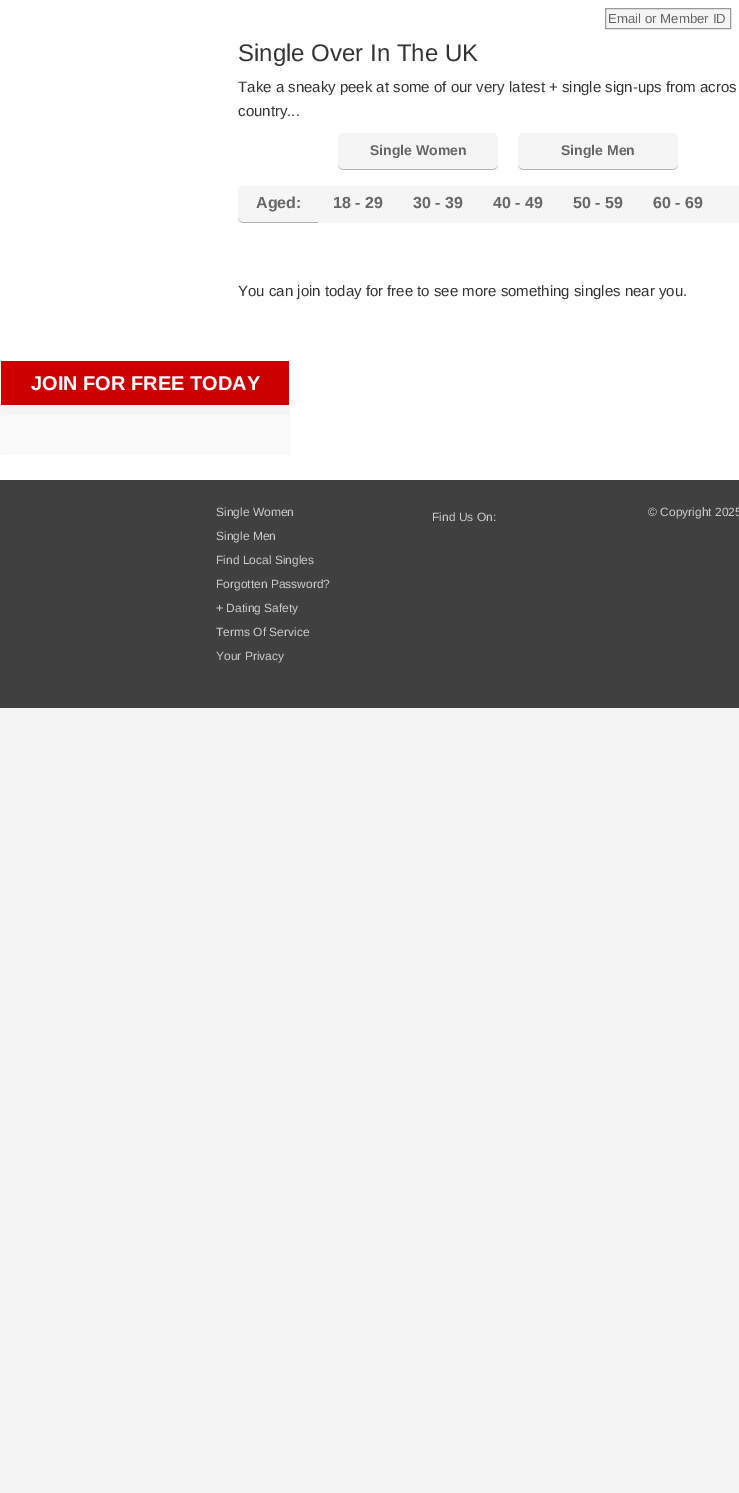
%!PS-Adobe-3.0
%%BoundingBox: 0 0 739 1493
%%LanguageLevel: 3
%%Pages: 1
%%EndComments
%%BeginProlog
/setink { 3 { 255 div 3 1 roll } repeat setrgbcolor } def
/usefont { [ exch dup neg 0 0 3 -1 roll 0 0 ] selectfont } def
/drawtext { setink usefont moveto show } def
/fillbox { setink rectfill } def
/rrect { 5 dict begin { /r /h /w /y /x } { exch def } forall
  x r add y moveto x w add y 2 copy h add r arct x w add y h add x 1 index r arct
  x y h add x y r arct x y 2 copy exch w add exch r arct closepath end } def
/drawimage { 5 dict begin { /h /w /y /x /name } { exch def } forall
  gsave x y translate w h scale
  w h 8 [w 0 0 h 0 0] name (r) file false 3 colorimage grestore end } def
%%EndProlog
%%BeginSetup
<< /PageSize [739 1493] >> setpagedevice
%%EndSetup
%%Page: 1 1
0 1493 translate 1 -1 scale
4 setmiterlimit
0 0 739 1493 244 244 244 fillbox
0 0 739 480 255 255 255 fillbox
245 245 245 setink
605.5 8.5 moveto 730.5 8.5 lineto 730.5 28.5 lineto 605.5 28.5 lineto closepath gsave fill grestore
153 153 153 setink
stroke
(Email or Member ID) 608 23 /LiberationSans-Regular 13.25 102 102 102 drawtext
(Single Over In The UK) 238 61 /LiberationSans-Regular 24 51 51 51 drawtext
(Take a sneaky peek at some of our very latest + single sign-ups from acros) 238 92 /LiberationSans-Regular 15 51 51 51 drawtext
(country...) 238 116 /LiberationSans-Regular 15 51 51 51 drawtext
(assets/img1.rgb) 338 133 160 37 drawimage
(Single Women) 370 155 /LiberationSans-Bold 14 102 102 102 drawtext
(assets/img1.rgb) 518 133 160 37 drawimage
(Single Men) 561 155 /LiberationSans-Bold 14 102 102 102 drawtext
(assets/img2.rgb) 238 186 80 37 drawimage
(Aged:) 256 208 /LiberationSans-Bold 16 102 102 102 drawtext
318 186 421 37 245 245 245 fillbox
(18 - 29) 333 208 /LiberationSans-Bold 16 102 102 102 drawtext
(30 - 39) 413 208 /LiberationSans-Bold 16 102 102 102 drawtext
(40 - 49) 493 208 /LiberationSans-Bold 16 102 102 102 drawtext
(50 - 59) 573 208 /LiberationSans-Bold 16 102 102 102 drawtext
(60 - 69) 653 208 /LiberationSans-Bold 16 102 102 102 drawtext
(You can join today for free to see more something singles near you.) 238 296 /LiberationSans-Regular 15 51 51 51 drawtext
0 361 290 94 245 245 245 fillbox
1 361 288 44 204 0 0 fillbox
(JOIN FOR FREE TODAY) 31 390 /LiberationSans-Bold 20 255 255 255 drawtext
250 250 250 setink
0 415 290 40 4 rrect fill
0 480 739 228 64 64 64 fillbox
(Single Women) 216 516 /LiberationSans-Regular 12 204 204 204 drawtext
(Single Men) 216 540 /LiberationSans-Regular 12 204 204 204 drawtext
(Find Local Singles) 216 564 /LiberationSans-Regular 12 204 204 204 drawtext
(Forgotten Password?) 216 588 /LiberationSans-Regular 12 204 204 204 drawtext
(+ Dating Safety) 216 612 /LiberationSans-Regular 12 204 204 204 drawtext
(Terms Of Service) 216 636 /LiberationSans-Regular 12 204 204 204 drawtext
(Your Privacy) 216 660 /LiberationSans-Regular 12 204 204 204 drawtext
(Find Us On:) 432 521 /LiberationSans-Regular 12 204 204 204 drawtext
(© Copyright 2025) 648 516 /LiberationSans-Regular 12 204 204 204 drawtext
showpage
%%EOF
